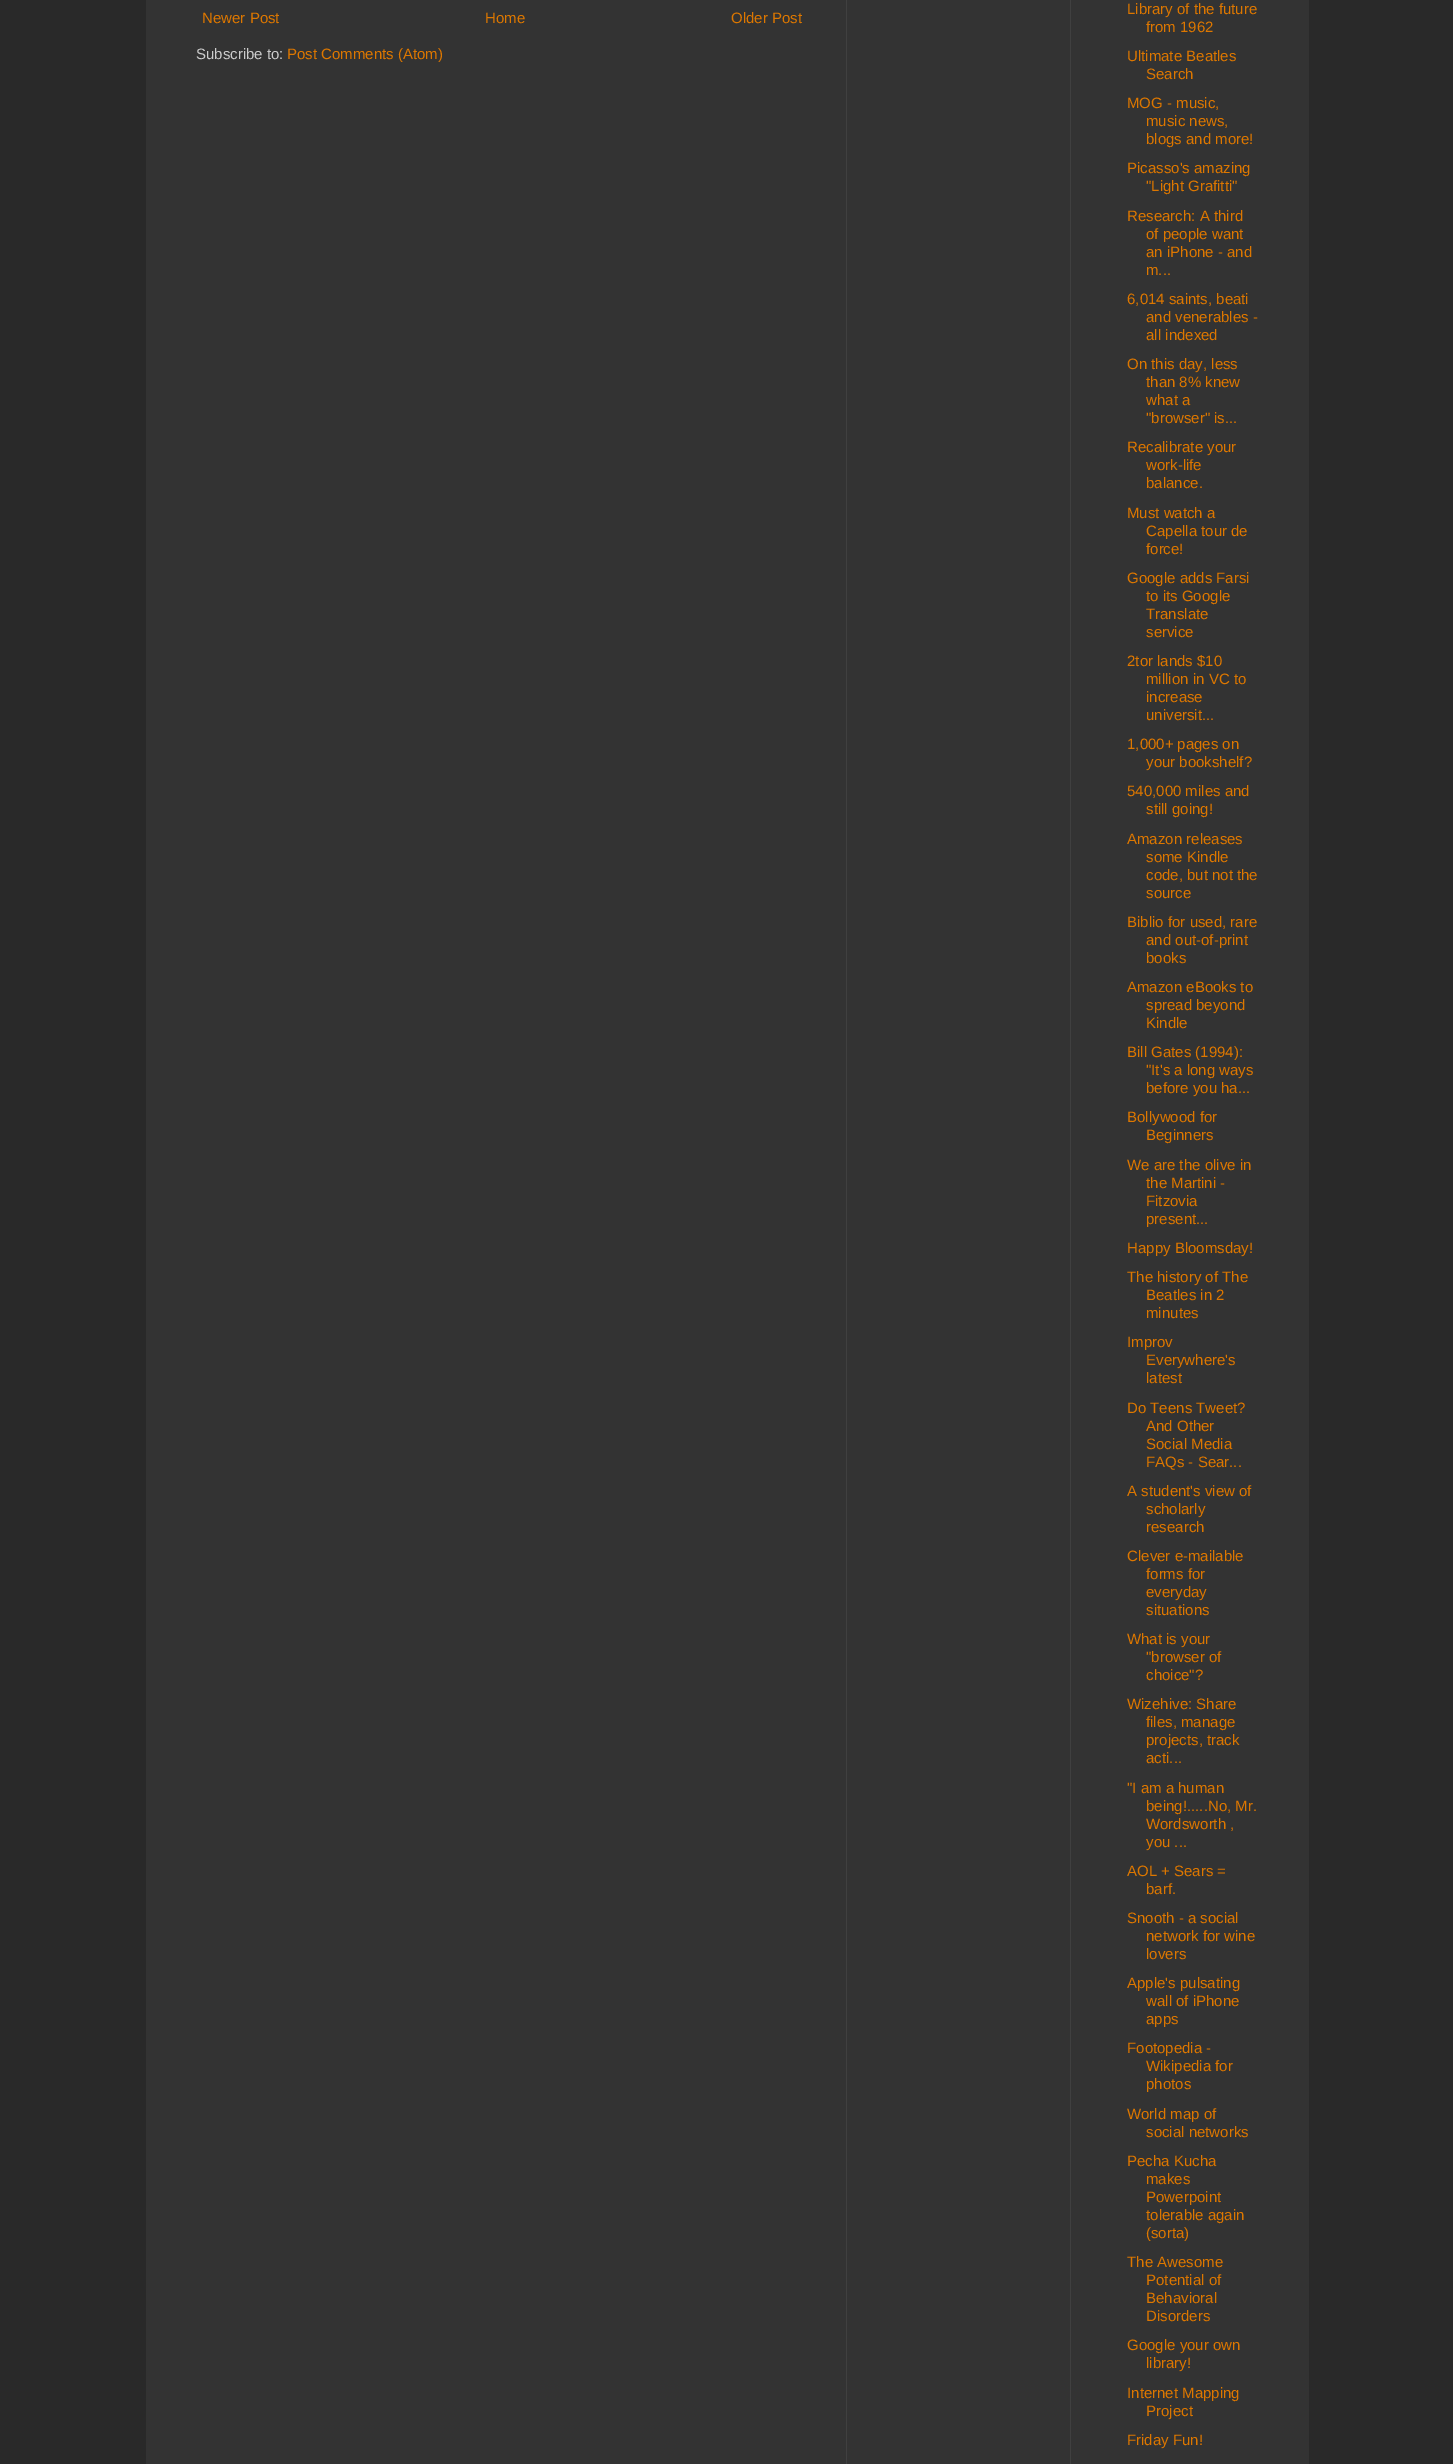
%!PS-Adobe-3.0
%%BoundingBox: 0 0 1453 2464
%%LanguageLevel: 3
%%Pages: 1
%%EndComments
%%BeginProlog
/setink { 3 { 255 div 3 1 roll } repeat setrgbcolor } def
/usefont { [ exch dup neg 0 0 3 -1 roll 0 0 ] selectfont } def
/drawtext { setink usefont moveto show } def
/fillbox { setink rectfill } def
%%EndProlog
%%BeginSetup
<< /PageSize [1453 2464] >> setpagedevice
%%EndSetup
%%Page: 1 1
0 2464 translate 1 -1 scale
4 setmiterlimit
0 0 1453 2464 41 41 41 fillbox
146 0 1163 2464 51 51 51 fillbox
846 0 1 2464 64 64 64 fillbox
(Newer Post) 202 23 /LiberationSans-Regular 15 221 119 0 drawtext
(Home) 485 23 /LiberationSans-Regular 15 221 119 0 drawtext
(Older Post) 731 23 /LiberationSans-Regular 15 221 119 0 drawtext
(Subscribe to:) 196 59 /LiberationSans-Regular 15 204 204 204 drawtext
(Post Comments \(Atom\)) 287 59 /LiberationSans-Regular 15 221 119 0 drawtext
1070 0 1 2464 64 64 64 fillbox
(Library of the future) 1127 14 /LiberationSans-Regular 15 221 119 0 drawtext
(from 1962) 1146 32 /LiberationSans-Regular 15 221 119 0 drawtext
(Ultimate Beatles) 1127 61 /LiberationSans-Regular 15 221 119 0 drawtext
(Search) 1146 79 /LiberationSans-Regular 15 221 119 0 drawtext
(MOG - music,) 1127 108 /LiberationSans-Regular 15 221 119 0 drawtext
(music news,) 1146 126 /LiberationSans-Regular 15 221 119 0 drawtext
(blogs and more!) 1146 144 /LiberationSans-Regular 15 221 119 0 drawtext
(Picasso's amazing) 1127 173 /LiberationSans-Regular 15 221 119 0 drawtext
("Light Grafitti") 1146 191 /LiberationSans-Regular 15 221 119 0 drawtext
(Research: A third) 1127 221 /LiberationSans-Regular 15 221 119 0 drawtext
(of people want) 1146 239 /LiberationSans-Regular 15 221 119 0 drawtext
(an iPhone - and) 1146 257 /LiberationSans-Regular 15 221 119 0 drawtext
(m...) 1146 275 /LiberationSans-Regular 15 221 119 0 drawtext
(6,014 saints, beati) 1127 304 /LiberationSans-Regular 15 221 119 0 drawtext
(and venerables -) 1146 322 /LiberationSans-Regular 15 221 119 0 drawtext
(all indexed) 1146 340 /LiberationSans-Regular 15 221 119 0 drawtext
(On this day, less) 1127 369 /LiberationSans-Regular 15 221 119 0 drawtext
(than 8% knew) 1146 387 /LiberationSans-Regular 15 221 119 0 drawtext
(what a) 1146 405 /LiberationSans-Regular 15 221 119 0 drawtext
("browser" is...) 1146 423 /LiberationSans-Regular 15 221 119 0 drawtext
(Recalibrate your) 1127 452 /LiberationSans-Regular 15 221 119 0 drawtext
(work-life) 1146 470 /LiberationSans-Regular 15 221 119 0 drawtext
(balance.) 1146 488 /LiberationSans-Regular 15 221 119 0 drawtext
(Must watch a) 1127 518 /LiberationSans-Regular 15 221 119 0 drawtext
(Capella tour de) 1146 536 /LiberationSans-Regular 15 221 119 0 drawtext
(force!) 1146 554 /LiberationSans-Regular 15 221 119 0 drawtext
(Google adds Farsi) 1127 583 /LiberationSans-Regular 15 221 119 0 drawtext
(to its Google) 1146 601 /LiberationSans-Regular 15 221 119 0 drawtext
(Translate) 1146 619 /LiberationSans-Regular 15 221 119 0 drawtext
(service) 1146 637 /LiberationSans-Regular 15 221 119 0 drawtext
(2tor lands $10) 1127 666 /LiberationSans-Regular 15 221 119 0 drawtext
(million in VC to) 1146 684 /LiberationSans-Regular 15 221 119 0 drawtext
(increase) 1146 702 /LiberationSans-Regular 15 221 119 0 drawtext
(universit...) 1146 720 /LiberationSans-Regular 15 221 119 0 drawtext
(1,000+ pages on) 1127 749 /LiberationSans-Regular 15 221 119 0 drawtext
(your bookshelf?) 1146 767 /LiberationSans-Regular 15 221 119 0 drawtext
(540,000 miles and) 1127 796 /LiberationSans-Regular 15 221 119 0 drawtext
(still going!) 1146 814 /LiberationSans-Regular 15 221 119 0 drawtext
(Amazon releases) 1127 844 /LiberationSans-Regular 15 221 119 0 drawtext
(some Kindle) 1146 862 /LiberationSans-Regular 15 221 119 0 drawtext
(code, but not the) 1146 880 /LiberationSans-Regular 15 221 119 0 drawtext
(source) 1146 898 /LiberationSans-Regular 15 221 119 0 drawtext
(Biblio for used, rare) 1127 927 /LiberationSans-Regular 15 221 119 0 drawtext
(and out-of-print) 1146 945 /LiberationSans-Regular 15 221 119 0 drawtext
(books) 1146 963 /LiberationSans-Regular 15 221 119 0 drawtext
(Amazon eBooks to) 1127 992 /LiberationSans-Regular 15 221 119 0 drawtext
(spread beyond) 1146 1010 /LiberationSans-Regular 15 221 119 0 drawtext
(Kindle) 1146 1028 /LiberationSans-Regular 15 221 119 0 drawtext
(Bill Gates \(1994\):) 1127 1057 /LiberationSans-Regular 15 221 119 0 drawtext
("It's a long ways) 1146 1075 /LiberationSans-Regular 15 221 119 0 drawtext
(before you ha...) 1146 1093 /LiberationSans-Regular 15 221 119 0 drawtext
(Bollywood for) 1127 1122 /LiberationSans-Regular 15 221 119 0 drawtext
(Beginners) 1146 1140 /LiberationSans-Regular 15 221 119 0 drawtext
(We are the olive in) 1127 1170 /LiberationSans-Regular 15 221 119 0 drawtext
(the Martini -) 1146 1188 /LiberationSans-Regular 15 221 119 0 drawtext
(Fitzovia) 1146 1206 /LiberationSans-Regular 15 221 119 0 drawtext
(present...) 1146 1224 /LiberationSans-Regular 15 221 119 0 drawtext
(Happy Bloomsday!) 1127 1253 /LiberationSans-Regular 15 221 119 0 drawtext
(The history of The) 1127 1282 /LiberationSans-Regular 15 221 119 0 drawtext
(Beatles in 2) 1146 1300 /LiberationSans-Regular 15 221 119 0 drawtext
(minutes) 1146 1318 /LiberationSans-Regular 15 221 119 0 drawtext
(Improv) 1127 1347 /LiberationSans-Regular 15 221 119 0 drawtext
(Everywhere's) 1146 1365 /LiberationSans-Regular 15 221 119 0 drawtext
(latest) 1146 1383 /LiberationSans-Regular 15 221 119 0 drawtext
(Do Teens Tweet?) 1127 1413 /LiberationSans-Regular 15 221 119 0 drawtext
(And Other) 1146 1431 /LiberationSans-Regular 15 221 119 0 drawtext
(Social Media) 1146 1449 /LiberationSans-Regular 15 221 119 0 drawtext
(FAQs - Sear...) 1146 1467 /LiberationSans-Regular 15 221 119 0 drawtext
(A student's view of) 1127 1496 /LiberationSans-Regular 15 221 119 0 drawtext
(scholarly) 1146 1514 /LiberationSans-Regular 15 221 119 0 drawtext
(research) 1146 1532 /LiberationSans-Regular 15 221 119 0 drawtext
(Clever e-mailable) 1127 1561 /LiberationSans-Regular 15 221 119 0 drawtext
(forms for) 1146 1579 /LiberationSans-Regular 15 221 119 0 drawtext
(everyday) 1146 1597 /LiberationSans-Regular 15 221 119 0 drawtext
(situations) 1146 1615 /LiberationSans-Regular 15 221 119 0 drawtext
(What is your) 1127 1644 /LiberationSans-Regular 15 221 119 0 drawtext
("browser of) 1146 1662 /LiberationSans-Regular 15 221 119 0 drawtext
(choice"?) 1146 1680 /LiberationSans-Regular 15 221 119 0 drawtext
(Wizehive: Share) 1127 1709 /LiberationSans-Regular 15 221 119 0 drawtext
(files, manage) 1146 1727 /LiberationSans-Regular 15 221 119 0 drawtext
(projects, track) 1146 1745 /LiberationSans-Regular 15 221 119 0 drawtext
(acti...) 1146 1763 /LiberationSans-Regular 15 221 119 0 drawtext
("I am a human) 1127 1793 /LiberationSans-Regular 15 221 119 0 drawtext
(being!.....No, Mr.) 1146 1811 /LiberationSans-Regular 15 221 119 0 drawtext
(Wordsworth ,) 1146 1829 /LiberationSans-Regular 15 221 119 0 drawtext
(you ...) 1146 1847 /LiberationSans-Regular 15 221 119 0 drawtext
(AOL + Sears =) 1127 1876 /LiberationSans-Regular 15 221 119 0 drawtext
(barf.) 1146 1894 /LiberationSans-Regular 15 221 119 0 drawtext
(Snooth - a social) 1127 1923 /LiberationSans-Regular 15 221 119 0 drawtext
(network for wine) 1146 1941 /LiberationSans-Regular 15 221 119 0 drawtext
(lovers) 1146 1959 /LiberationSans-Regular 15 221 119 0 drawtext
(Apple's pulsating) 1127 1988 /LiberationSans-Regular 15 221 119 0 drawtext
(wall of iPhone) 1146 2006 /LiberationSans-Regular 15 221 119 0 drawtext
(apps) 1146 2024 /LiberationSans-Regular 15 221 119 0 drawtext
(Footopedia -) 1127 2053 /LiberationSans-Regular 15 221 119 0 drawtext
(Wikipedia for) 1146 2071 /LiberationSans-Regular 15 221 119 0 drawtext
(photos) 1146 2089 /LiberationSans-Regular 15 221 119 0 drawtext
(World map of) 1127 2119 /LiberationSans-Regular 15 221 119 0 drawtext
(social networks) 1146 2137 /LiberationSans-Regular 15 221 119 0 drawtext
(Pecha Kucha) 1127 2166 /LiberationSans-Regular 15 221 119 0 drawtext
(makes) 1146 2184 /LiberationSans-Regular 15 221 119 0 drawtext
(Powerpoint) 1146 2202 /LiberationSans-Regular 15 221 119 0 drawtext
(tolerable again) 1146 2220 /LiberationSans-Regular 15 221 119 0 drawtext
(\(sorta\)) 1146 2238 /LiberationSans-Regular 15 221 119 0 drawtext
(The Awesome) 1127 2267 /LiberationSans-Regular 15 221 119 0 drawtext
(Potential of) 1146 2285 /LiberationSans-Regular 15 221 119 0 drawtext
(Behavioral) 1146 2303 /LiberationSans-Regular 15 221 119 0 drawtext
(Disorders) 1146 2321 /LiberationSans-Regular 15 221 119 0 drawtext
(Google your own) 1127 2350 /LiberationSans-Regular 15 221 119 0 drawtext
(library!) 1146 2368 /LiberationSans-Regular 15 221 119 0 drawtext
(Internet Mapping) 1127 2398 /LiberationSans-Regular 15 221 119 0 drawtext
(Project) 1146 2416 /LiberationSans-Regular 15 221 119 0 drawtext
(Friday Fun!) 1127 2445 /LiberationSans-Regular 15 221 119 0 drawtext
showpage
%%EOF
